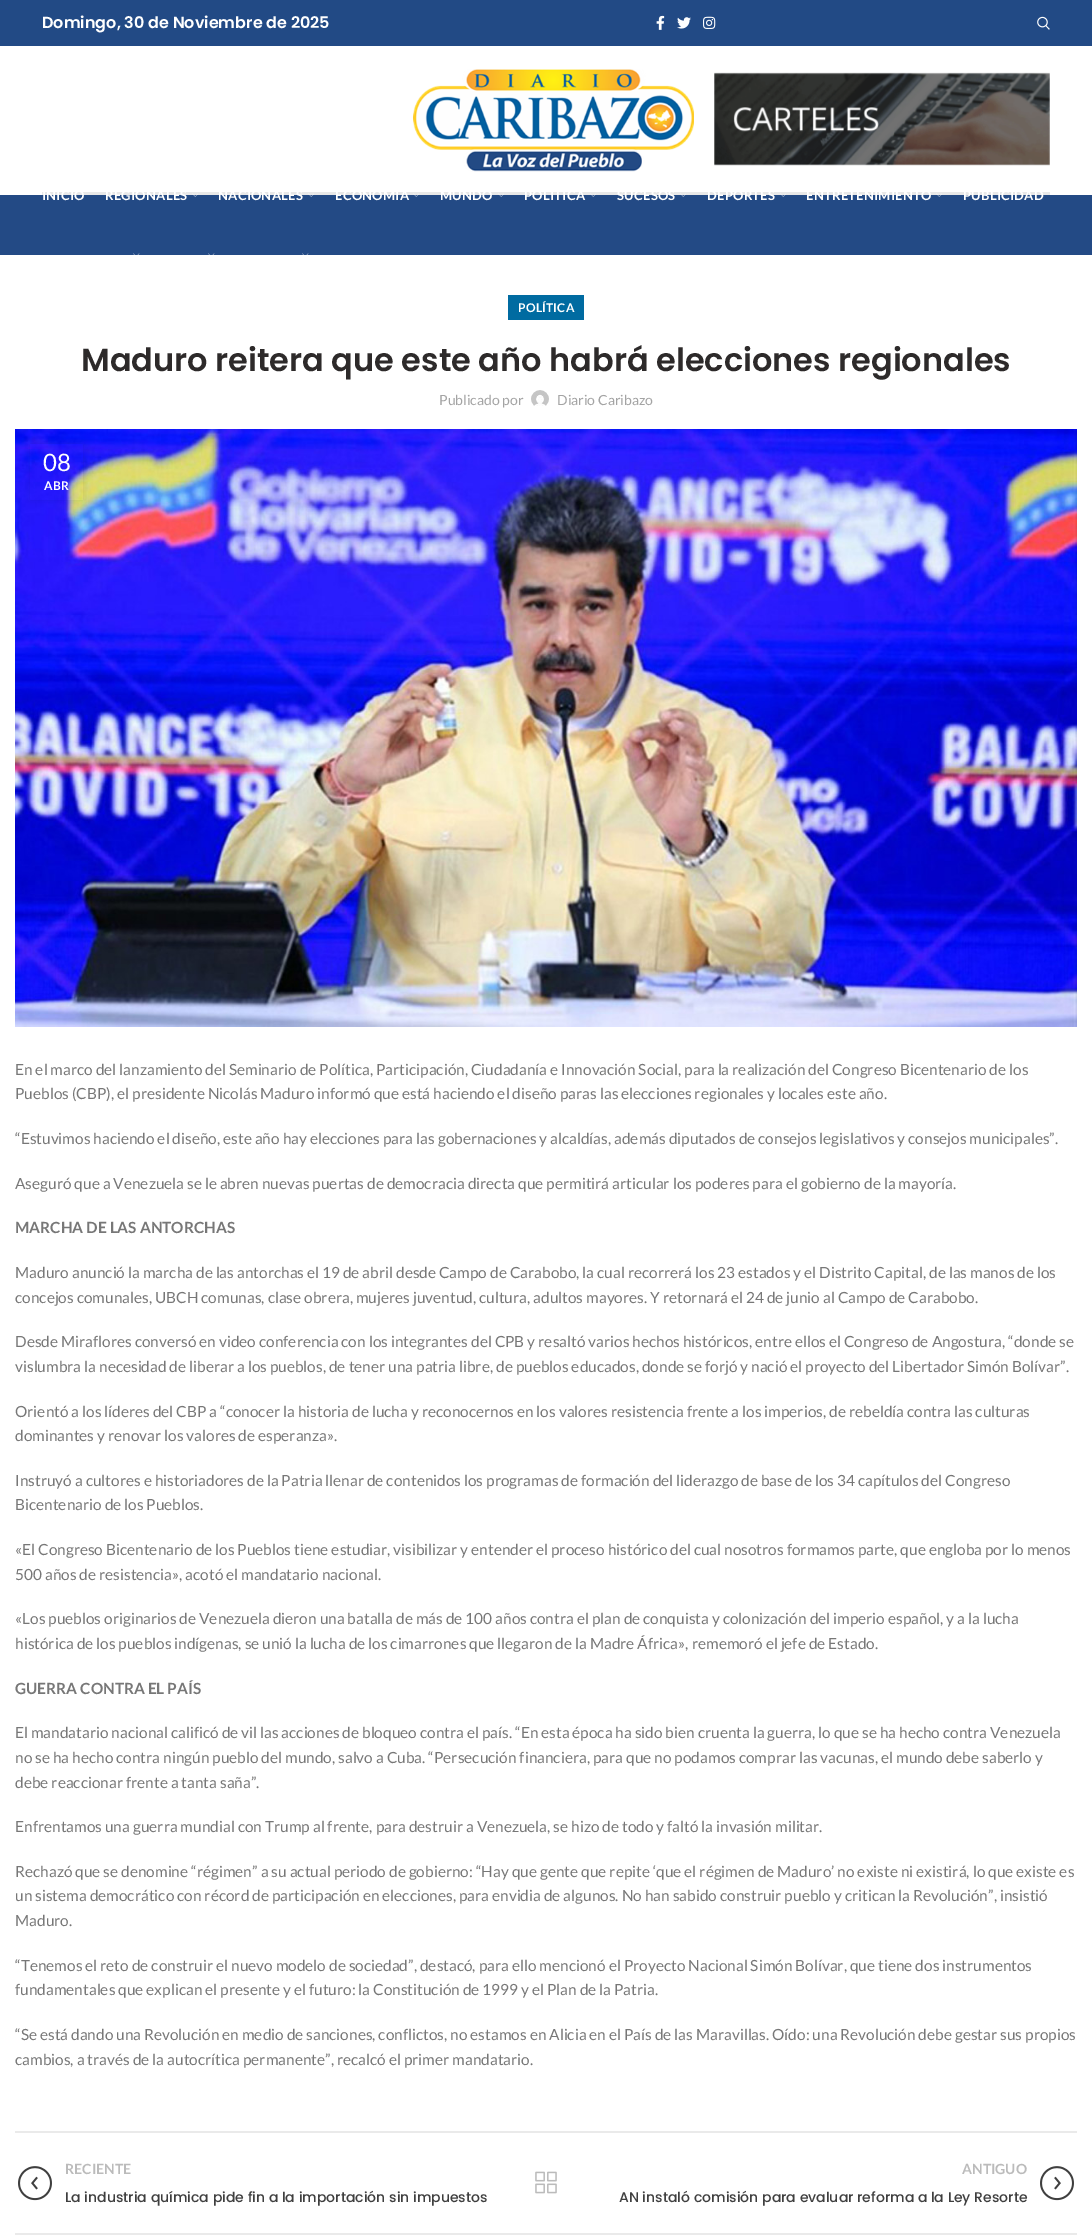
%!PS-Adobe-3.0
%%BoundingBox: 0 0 1092 2239
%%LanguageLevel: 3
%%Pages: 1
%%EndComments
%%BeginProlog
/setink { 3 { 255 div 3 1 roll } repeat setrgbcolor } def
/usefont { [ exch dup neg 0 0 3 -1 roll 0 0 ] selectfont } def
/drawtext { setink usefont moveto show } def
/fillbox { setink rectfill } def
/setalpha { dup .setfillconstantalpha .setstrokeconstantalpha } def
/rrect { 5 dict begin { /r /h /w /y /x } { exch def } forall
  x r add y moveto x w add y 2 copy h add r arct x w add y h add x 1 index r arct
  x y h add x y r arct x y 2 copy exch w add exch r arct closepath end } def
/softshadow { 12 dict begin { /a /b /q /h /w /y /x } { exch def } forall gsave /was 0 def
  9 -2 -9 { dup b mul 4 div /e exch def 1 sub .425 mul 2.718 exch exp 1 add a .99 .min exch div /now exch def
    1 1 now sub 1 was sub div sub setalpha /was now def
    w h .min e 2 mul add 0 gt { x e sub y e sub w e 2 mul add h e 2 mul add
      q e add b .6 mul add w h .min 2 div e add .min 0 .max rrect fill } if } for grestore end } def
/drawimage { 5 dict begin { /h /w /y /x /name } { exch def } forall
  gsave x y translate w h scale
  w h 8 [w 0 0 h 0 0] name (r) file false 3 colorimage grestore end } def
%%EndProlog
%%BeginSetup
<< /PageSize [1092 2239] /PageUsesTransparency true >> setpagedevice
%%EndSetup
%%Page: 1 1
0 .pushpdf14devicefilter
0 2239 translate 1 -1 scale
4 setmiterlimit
0 0 1092 2239 255 255 255 fillbox
0 0 1092 46 34 74 133 fillbox
(Domingo, 30 de Noviembre de 2025) 42 28 /Poppins-SemiBold 16 255 255 255 drawtext
(assets/img1.rgb) 656 15 9 15 drawimage
(assets/img2.rgb) 677 17 14 12 drawimage
(assets/img3.rgb) 703 16 13 13 drawimage
(assets/img4.rgb) 1037 16 13 14 drawimage
42 192 1008 3 232 232 232 fillbox
(assets/img5.rgb) 413 69 281 103 drawimage
(assets/img6.rgb) 714 72 336 94 drawimage
0 195 1092 60 35 74 133 fillbox
/Lato-Bold 13 usefont
255 255 255 setink
42 200 moveto 0.25 0 (INICIO) ashow
105 200 moveto 0.25 0 (REGIONALES) ashow
(assets/img7.rgb) 192 193 6 4 drawimage
218 200 moveto 0.25 0 (NACIONALES) ashow
(assets/img7.rgb) 308 193 6 4 drawimage
335 200 moveto 0.25 0 (ECONOMÍA) ashow
(assets/img7.rgb) 413 193 6 4 drawimage
440 200 moveto 0.25 0 (MUNDO) ashow
(assets/img7.rgb) 498 193 6 4 drawimage
524 200 moveto 0.25 0 (POLÍTICA) ashow
(assets/img7.rgb) 590 193 6 4 drawimage
617 200 moveto 0.25 0 (SUCESOS) ashow
(assets/img7.rgb) 680 193 6 4 drawimage
707 200 moveto 0.25 0 (DEPORTES) ashow
(assets/img7.rgb) 780 193 6 4 drawimage
806 200 moveto 0.25 0 (ENTRETENIMIENTO) ashow
(assets/img7.rgb) 936 193 6 4 drawimage
963 200 moveto 0.25 0 (PUBLICIDAD) ashow
(assets/img8.rgb) 133 253 7 2 drawimage
(assets/img8.rgb) 208 253 7 2 drawimage
(assets/img8.rgb) 302 253 7 2 drawimage
508 295 76 25 0 107 161 fillbox
/Lato-Bold 12 usefont
255 255 255 setink
518 312 moveto 0.25 0 (POLÍTICA) ashow
(Maduro reitera que este año habrá elecciones regionales) 81 371 /Poppins-SemiBold 32 45 42 42 drawtext
(Publicado por) 439 405 /Lato-Regular 14 164 164 164 drawtext
(assets/img9.rgb) 531 390 18 16 drawimage
(Diario Caribazo) 557 405 /Lato-Regular 14 164 164 164 drawtext
(assets/img10.rgb) 15 429 1062 598 drawimage
gsave
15 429 moveto 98 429 lineto 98 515 lineto 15 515 lineto closepath 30 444 moveto 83 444 lineto 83 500 lineto 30 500 lineto closepath eoclip newpath
0 0 0 setink
30 444 53 56 0 4.5 0.1 softshadow
grestore
(08) 43 471 /Lato-Regular 24 255 255 255 drawtext
/Lato-Bold 12 usefont
44 490 moveto 0.25 0 (ABR) ashow
(En el marco del lanzamiento del Seminario de Política, Participación, Ciudadanía e Innovación Social, para la realización del Congreso Bicentenario de los) 15 1075 /Lato-Regular 15.4 119 119 119 drawtext
(Pueblos \(CBP\), el presidente Nicolás Maduro informó que está haciendo el diseño paras las elecciones regionales y locales este año.) 15 1099 /Lato-Regular 15.4 119 119 119 drawtext
(“Estuvimos haciendo el diseño, este año hay elecciones para las gobernaciones y alcaldías, además diputados de consejos legislativos y consejos municipales”.) 15 1144 /Lato-Regular 15.4 119 119 119 drawtext
(Aseguró que a Venezuela se le abren nuevas puertas de democracia directa que permitirá articular los poderes para el gobierno de la mayoría.) 15 1189 /Lato-Regular 15.4 119 119 119 drawtext
(MARCHA DE LAS ANTORCHAS) 15 1233 /Lato-Bold 15.4 119 119 119 drawtext
(Maduro anunció la marcha de las antorchas el 19 de abril desde Campo de Carabobo, la cual recorrerá los 23 estados y el Distrito Capital, de las manos de los) 15 1278 /Lato-Regular 15.4 119 119 119 drawtext
(concejos comunales, UBCH comunas, clase obrera, mujeres juventud, cultura, adultos mayores. Y retornará el 24 de junio al Campo de Carabobo.) 15 1303 /Lato-Regular 15.4 119 119 119 drawtext
(Desde Miraflores conversó en video conferencia con los integrantes del CPB y resaltó varios hechos históricos, entre ellos el Congreso de Angostura, “donde se) 15 1347 /Lato-Regular 15.4 119 119 119 drawtext
(vislumbra la necesidad de liberar a los pueblos, de tener una patria libre, de pueblos educados, donde se forjó y nació el proyecto del Libertador Simón Bolívar”.) 15 1372 /Lato-Regular 15.4 119 119 119 drawtext
(Orientó a los líderes del CBP a “conocer la historia de lucha y reconocernos en los valores resistencia frente a los imperios, de rebeldía contra las culturas) 15 1417 /Lato-Regular 15.4 119 119 119 drawtext
(dominantes y renovar los valores de esperanza».) 15 1441 /Lato-Regular 15.4 119 119 119 drawtext
(Instruyó a cultores e historiadores de la Patria llenar de contenidos los programas de formación del liderazgo de base de los 34 capítulos del Congreso) 15 1486 /Lato-Regular 15.4 119 119 119 drawtext
(Bicentenario de los Pueblos.) 15 1510 /Lato-Regular 15.4 119 119 119 drawtext
(«El Congreso Bicentenario de los Pueblos tiene estudiar, visibilizar y entender el proceso histórico del cual nosotros formamos parte, que engloba por lo menos) 15 1555 /Lato-Regular 15.4 119 119 119 drawtext
(500 años de resistencia», acotó el mandatario nacional.) 15 1580 /Lato-Regular 15.4 119 119 119 drawtext
(«Los pueblos originarios de Venezuela dieron una batalla de más de 100 años contra el plan de conquista y colonización del imperio español, y a la lucha) 15 1624 /Lato-Regular 15.4 119 119 119 drawtext
(histórica de los pueblos indígenas, se unió la lucha de los cimarrones que llegaron de la Madre África», rememoró el jefe de Estado.) 15 1649 /Lato-Regular 15.4 119 119 119 drawtext
(GUERRA CONTRA EL PAÍS) 15 1694 /Lato-Bold 15.4 119 119 119 drawtext
(El mandatario nacional calificó de vil las acciones de bloqueo contra el país. “En esta época ha sido bien cruenta la guerra, lo que se ha hecho contra Venezuela) 15 1738 /Lato-Regular 15.4 119 119 119 drawtext
(no se ha hecho contra ningún pueblo del mundo, salvo a Cuba. “Persecución financiera, para que no podamos comprar las vacunas, el mundo debe saberlo y) 15 1763 /Lato-Regular 15.4 119 119 119 drawtext
(debe reaccionar frente a tanta saña”.) 15 1788 /Lato-Regular 15.4 119 119 119 drawtext
(Enfrentamos una guerra mundial con Trump al frente, para destruir a Venezuela, se hizo de todo y faltó la invasión militar.) 15 1832 /Lato-Regular 15.4 119 119 119 drawtext
(Rechazó que se denomine “régimen” a su actual periodo de gobierno: “Hay que gente que repite ‘que el régimen de Maduro’ no existe ni existirá, lo que existe es) 15 1877 /Lato-Regular 15.4 119 119 119 drawtext
(un sistema democrático con récord de participación en elecciones, para envidia de algunos. No han sabido construir pueblo y critican la Revolución”, insistió) 15 1901 /Lato-Regular 15.4 119 119 119 drawtext
(Maduro.) 15 1926 /Lato-Regular 15.4 119 119 119 drawtext
(“Tenemos el reto de construir el nuevo modelo de sociedad”, destacó, para ello mencionó el Proyecto Nacional Simón Bolívar, que tiene dos instrumentos) 15 1971 /Lato-Regular 15.4 119 119 119 drawtext
(fundamentales que explican el presente y el futuro: la Constitución de 1999 y el Plan de la Patria.) 15 1995 /Lato-Regular 15.4 119 119 119 drawtext
(“Se está dando una Revolución en medio de sanciones, conflictos, no estamos en Alicia en el País de las Maravillas. Oído: una Revolución debe gestar sus propios) 15 2040 /Lato-Regular 15.4 119 119 119 drawtext
(cambios, a través de la autocrítica permanente”, recalcó el primer mandatario.) 15 2065 /Lato-Regular 15.4 119 119 119 drawtext
15 2131 1062 2 234 234 234 fillbox
15 2233 1062 2 234 234 234 fillbox
(assets/img11.rgb) 18 2166 34 35 drawimage
(RECIENTE) 65 2174 /Lato-Bold 14 187 187 187 drawtext
(La industria química pide fin a la importación sin impuestos) 65 2202 /Poppins-Medium 14 63 63 63 drawtext
(assets/img12.rgb) 535 2171 22 23 drawimage
(ANTIGUO) 962 2174 /Lato-Bold 14 187 187 187 drawtext
(assets/img13.rgb) 1040 2166 34 35 drawimage
(AN instaló comisión para evaluar reforma a la Ley Resorte) 619 2202 /Poppins-Medium 14 63 63 63 drawtext
.poppdf14devicefilter showpage
%%EOF
